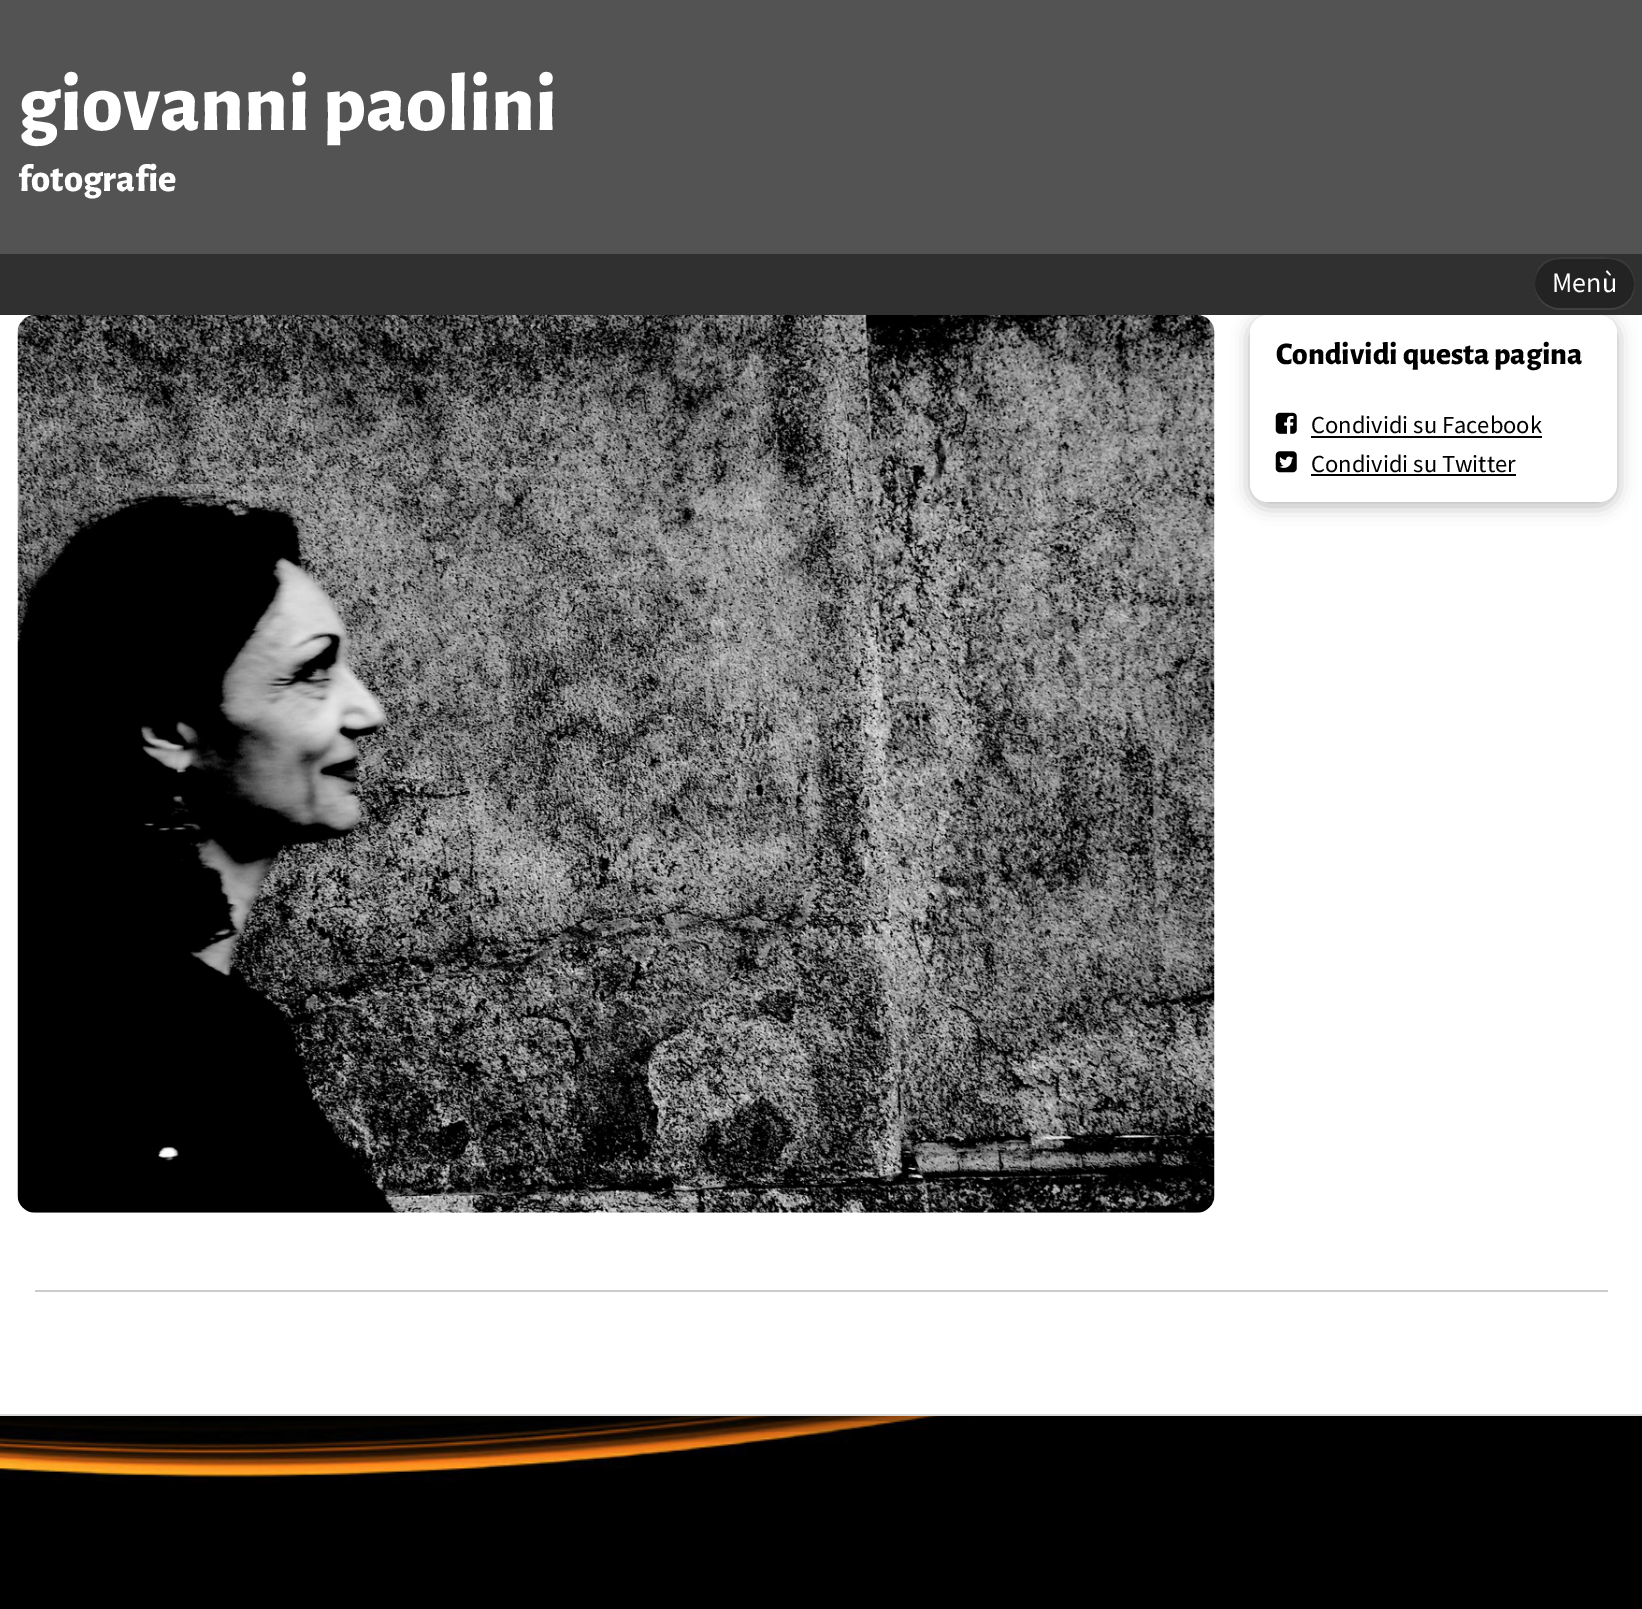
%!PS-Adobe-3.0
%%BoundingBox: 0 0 1642 1609
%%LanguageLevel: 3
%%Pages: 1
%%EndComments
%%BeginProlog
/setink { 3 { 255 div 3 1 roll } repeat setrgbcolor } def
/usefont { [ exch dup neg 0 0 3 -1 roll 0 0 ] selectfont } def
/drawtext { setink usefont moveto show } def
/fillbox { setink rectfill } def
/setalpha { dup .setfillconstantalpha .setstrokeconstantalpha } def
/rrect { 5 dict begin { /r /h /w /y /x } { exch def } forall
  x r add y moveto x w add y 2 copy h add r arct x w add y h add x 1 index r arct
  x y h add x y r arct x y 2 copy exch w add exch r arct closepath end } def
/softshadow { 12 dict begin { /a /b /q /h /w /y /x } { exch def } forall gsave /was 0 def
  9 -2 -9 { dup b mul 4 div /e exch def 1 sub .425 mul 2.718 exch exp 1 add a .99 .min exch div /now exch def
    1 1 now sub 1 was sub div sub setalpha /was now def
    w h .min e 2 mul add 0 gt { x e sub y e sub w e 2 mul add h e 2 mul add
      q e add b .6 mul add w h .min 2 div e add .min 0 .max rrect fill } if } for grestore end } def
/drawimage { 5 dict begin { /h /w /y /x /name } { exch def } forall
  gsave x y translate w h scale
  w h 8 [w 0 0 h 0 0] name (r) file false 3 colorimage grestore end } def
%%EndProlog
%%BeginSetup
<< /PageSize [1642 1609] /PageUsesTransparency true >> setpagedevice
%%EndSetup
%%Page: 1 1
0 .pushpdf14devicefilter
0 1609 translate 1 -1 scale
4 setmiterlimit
0 0 1642 1609 255 255 255 fillbox
(assets/img1.rgb) 0 1416 1642 193 drawimage
0 0 0 setink
0 0 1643 1416 0 21 0.8 softshadow
0 315 1642 1099 255 255 255 fillbox
0 1414 1642 2 217 217 217 fillbox
0 0 1642 254 83 83 83 fillbox
(giovanni paolini) 18 130 /AlegreyaSans-ExtraBold 82.25 255 255 255 drawtext
(fotografie) 18 191 /AlegreyaSans-ExtraBold 38.5 255 255 255 drawtext
0 0 0 setink
1250 319 367 187 18 9 0.29 softshadow
0 254 1642 61 48 48 48 fillbox
64 64 64 setink
1535 287 moveto 1536 300 1547 310 1560 310 curveto 1610 310 lineto 1624 310 1635 299 1635 284 curveto 1635 282 1635 279 1634 277 curveto 1634 283 lineto 1634 297 1623 308 1609 308 curveto 1560 308 lineto 1548 308 1537 299 1535 287 curveto closepath fill
35 35 35 setink
1535 257 100 51 25.5 rrect fill
0.1 setalpha
255 255 255 setink
1560 259 moveto 1609 259 lineto 1623 259 1634 270 1634 284 curveto 1634 288 1633 292 1631 296 curveto 1640 281 1632 261 1615 258 curveto 1601 257 lineto 1569 257 lineto 1557 257 1547 257 1539 268 curveto 1536 273 1535 278 1535 283 curveto 1535 270 1546 259 1560 259 curveto closepath fill
1 setalpha
(Menù) 1552 292 /SourceSansPro-Regular 28 255 255 255 drawtext
(assets/img2.rgb) 17 315 1198 898 drawimage
1250 315 367 187 18 rrect fill
(Condividi questa pagina) 1276 364 /AlegreyaSans-ExtraBold 31.5 0 0 0 drawtext
(assets/img3.rgb) 1275 412 22 22 drawimage
(Condividi su Facebook) 1311 433 /SourceSansPro-Regular 24.5 0 0 0 drawtext
1311 436 231 2 0 0 0 fillbox
(assets/img4.rgb) 1275 451 22 22 drawimage
(Condividi su Twitter) 1311 472 /SourceSansPro-Regular 24.5 0 0 0 drawtext
1311 474 205 2 0 0 0 fillbox
35 1290 1573 2 204 204 204 fillbox
.poppdf14devicefilter showpage
%%EOF
